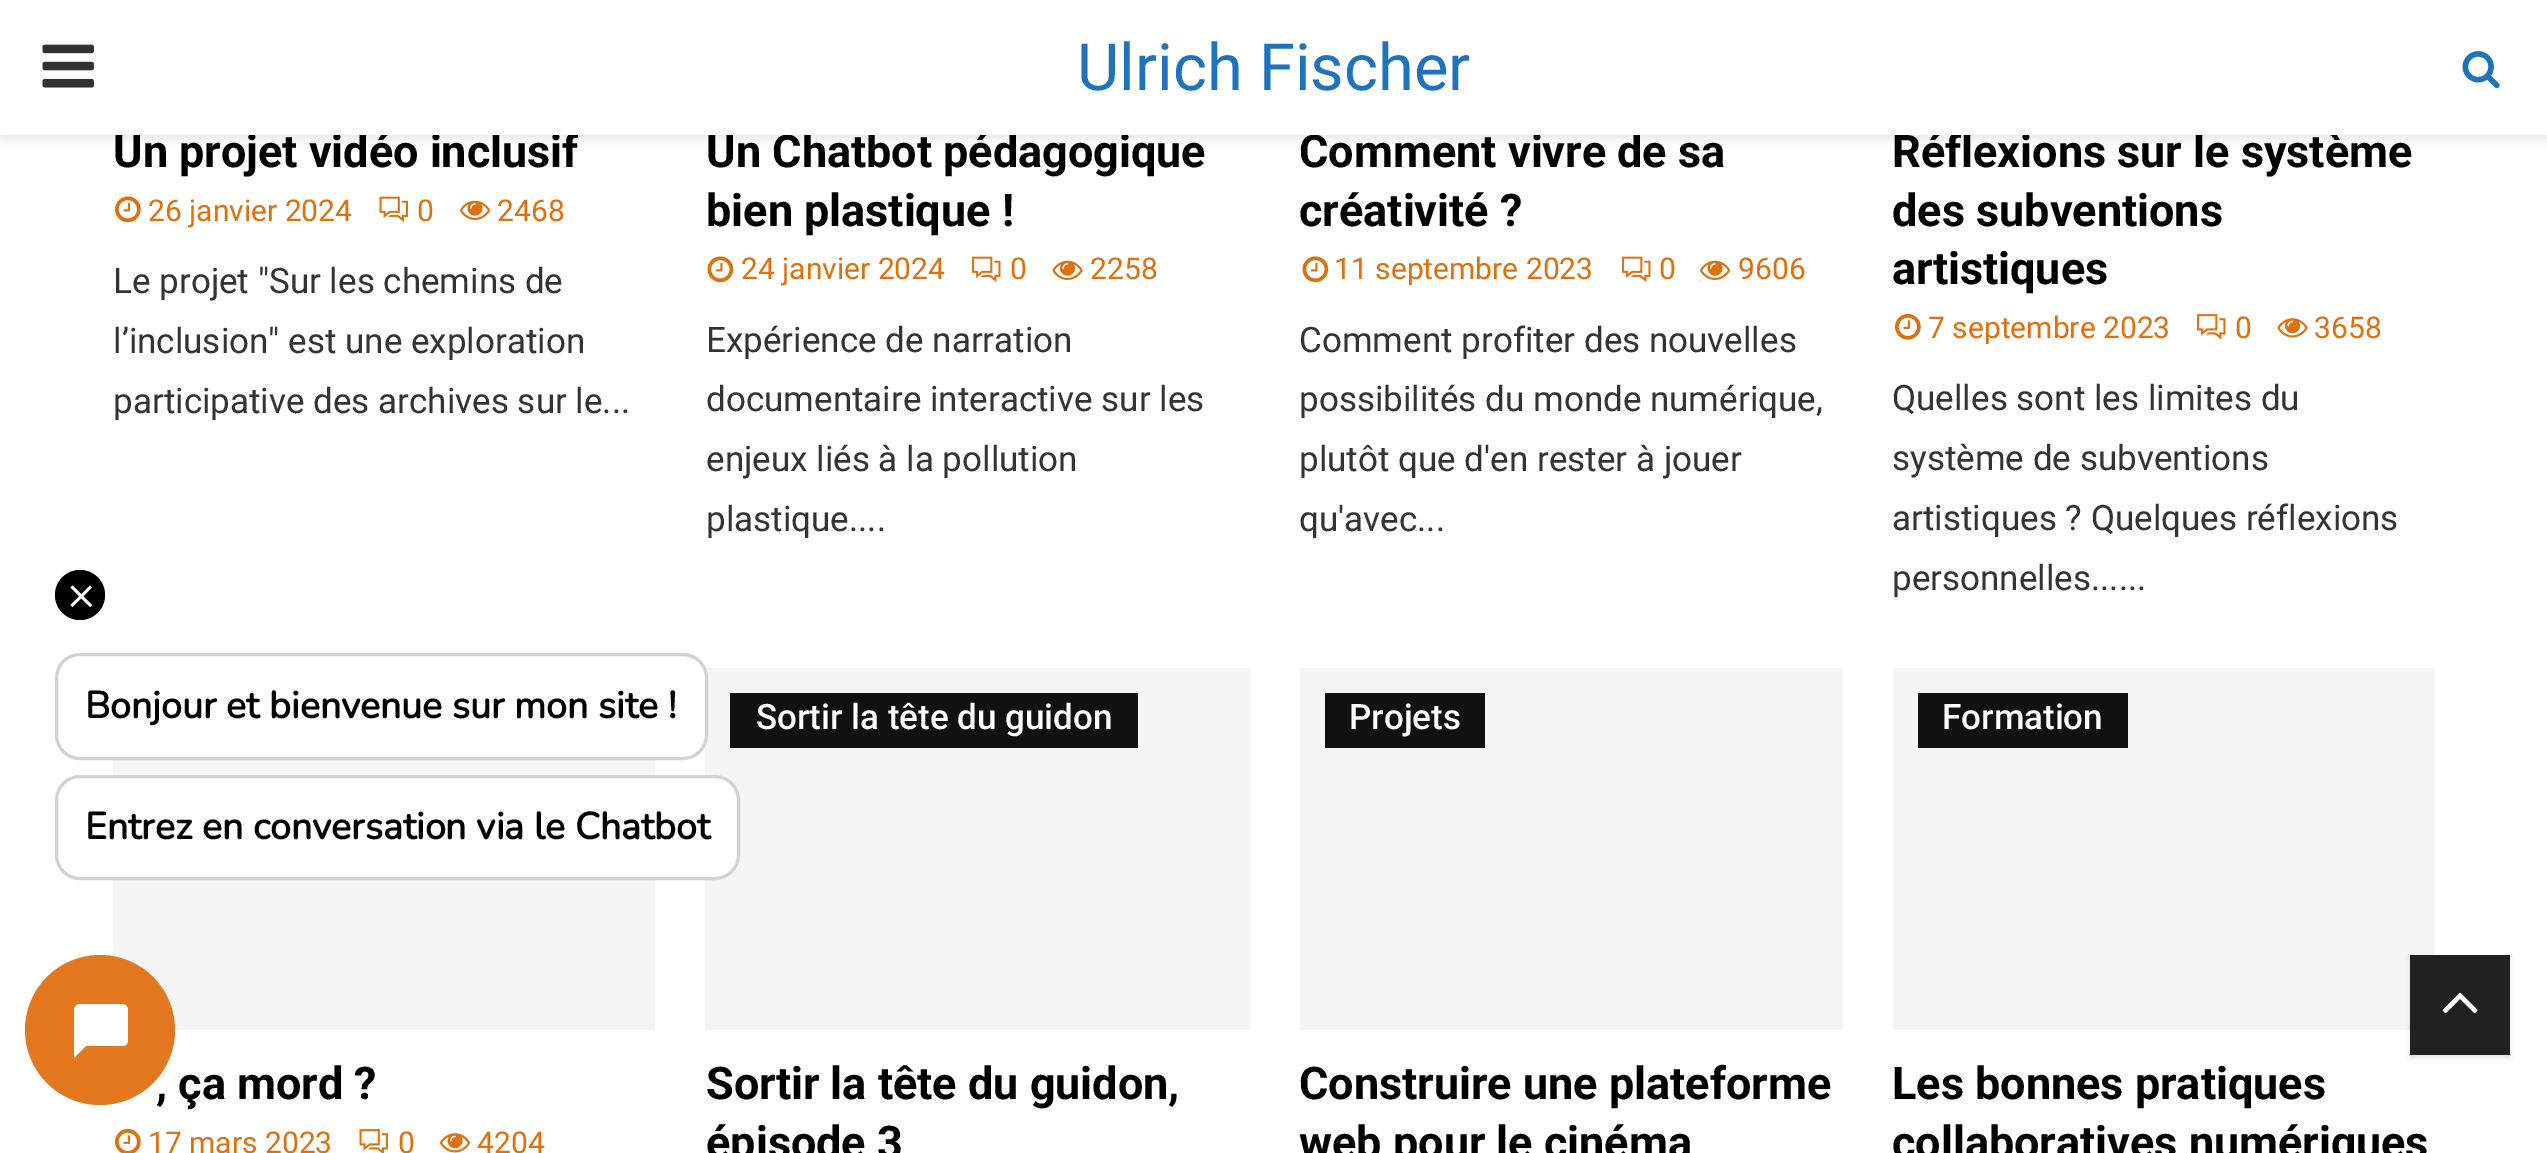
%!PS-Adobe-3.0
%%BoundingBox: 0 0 2547 1153
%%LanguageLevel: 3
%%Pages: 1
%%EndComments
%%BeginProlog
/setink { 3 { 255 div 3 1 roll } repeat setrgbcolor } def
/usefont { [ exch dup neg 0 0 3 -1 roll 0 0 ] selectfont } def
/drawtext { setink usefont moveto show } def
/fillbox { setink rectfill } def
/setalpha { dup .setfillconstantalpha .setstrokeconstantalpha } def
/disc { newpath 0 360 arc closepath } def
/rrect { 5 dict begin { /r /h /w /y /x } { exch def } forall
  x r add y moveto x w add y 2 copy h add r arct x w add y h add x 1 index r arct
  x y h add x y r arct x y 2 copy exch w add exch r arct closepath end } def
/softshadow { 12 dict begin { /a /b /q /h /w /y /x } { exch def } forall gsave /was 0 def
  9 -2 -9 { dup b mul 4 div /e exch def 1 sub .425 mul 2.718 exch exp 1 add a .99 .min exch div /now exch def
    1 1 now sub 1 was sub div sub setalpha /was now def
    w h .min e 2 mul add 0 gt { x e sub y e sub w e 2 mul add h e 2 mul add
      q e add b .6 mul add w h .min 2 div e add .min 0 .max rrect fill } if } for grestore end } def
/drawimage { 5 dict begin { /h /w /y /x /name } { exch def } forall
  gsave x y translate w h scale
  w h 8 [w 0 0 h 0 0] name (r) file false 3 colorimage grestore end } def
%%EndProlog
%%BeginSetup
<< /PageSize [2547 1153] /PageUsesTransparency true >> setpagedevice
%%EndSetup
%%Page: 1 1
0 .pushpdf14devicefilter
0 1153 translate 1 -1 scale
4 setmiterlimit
0 0 2547 1153 255 255 255 fillbox
190 190 190 setink
0 3 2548 135 0 6 0.46 softshadow
(Un projet vidéo inclusif) 113 167 /Roboto-Bold 45 0 0 0 drawtext
(Un Chatbot pédagogique) 706 167 /Roboto-Bold 45 0 0 0 drawtext
(Comment vivre de sa) 1299 167 /Roboto-Bold 45 0 0 0 drawtext
(Réflexions sur le système) 1892 167 /Roboto-Bold 45 0 0 0 drawtext
0 0 2547 135 255 255 255 fillbox
(assets/img1.rgb) 42 44 52 44 drawimage
(Ulrich Fischer) 1077 90 /Roboto-Regular 65 30 115 190 drawtext
(assets/img2.rgb) 2462 51 38 38 drawimage
(assets/img3.rgb) 115 196 26 27 drawimage
(26 janvier 2024) 148 221 /Roboto-Regular 30 224 111 13 drawtext
(assets/img4.rgb) 379 196 29 26 drawimage
(0) 417 221 /Roboto-Regular 30 224 111 13 drawtext
(assets/img5.rgb) 460 200 30 20 drawimage
(2468) 497 221 /Roboto-Regular 30 224 111 13 drawtext
(Le projet "Sur les chemins de) 113 293 /Roboto-Regular 35 51 51 51 drawtext
(l’inclusion" est une exploration) 113 353 /Roboto-Regular 35 51 51 51 drawtext
(participative des archives sur le...) 113 413 /Roboto-Regular 35 51 51 51 drawtext
(bien plastique !) 706 226 /Roboto-Bold 45 0 0 0 drawtext
(assets/img6.rgb) 707 256 27 27 drawimage
(24 janvier 2024) 741 279 /Roboto-Regular 30 224 111 13 drawtext
(assets/img7.rgb) 972 256 29 26 drawimage
(0) 1010 279 /Roboto-Regular 30 224 111 13 drawtext
(assets/img8.rgb) 1052 260 31 20 drawimage
(2258) 1090 279 /Roboto-Regular 30 224 111 13 drawtext
(Expérience de narration) 706 352 /Roboto-Regular 35 51 51 51 drawtext
(documentaire interactive sur les) 706 411 /Roboto-Regular 35 51 51 51 drawtext
(enjeux liés à la pollution) 706 471 /Roboto-Regular 35 51 51 51 drawtext
(plastique....) 706 531 /Roboto-Regular 35 51 51 51 drawtext
(créativité ?) 1299 226 /Roboto-Bold 45 0 0 0 drawtext
(assets/img6.rgb) 1302 256 27 27 drawimage
(11 septembre 2023) 1334 279 /Roboto-Regular 30 224 111 13 drawtext
(assets/img7.rgb) 1622 256 29 26 drawimage
(0) 1659 279 /Roboto-Regular 30 224 111 13 drawtext
(assets/img5.rgb) 1700 260 30 20 drawimage
(9606) 1738 279 /Roboto-Regular 30 224 111 13 drawtext
(Comment profiter des nouvelles) 1299 352 /Roboto-Regular 35 51 51 51 drawtext
(possibilités du monde numérique,) 1299 411 /Roboto-Regular 35 51 51 51 drawtext
(plutôt que d'en rester à jouer) 1299 471 /Roboto-Regular 35 51 51 51 drawtext
(qu'avec...) 1299 531 /Roboto-Regular 35 51 51 51 drawtext
(des subventions) 1892 226 /Roboto-Bold 45 0 0 0 drawtext
(artistiques) 1892 284 /Roboto-Bold 45 0 0 0 drawtext
(assets/img9.rgb) 1895 313 26 27 drawimage
(7 septembre 2023) 1928 338 /Roboto-Regular 30 224 111 13 drawtext
(assets/img10.rgb) 2197 314 29 26 drawimage
(0) 2235 338 /Roboto-Regular 30 224 111 13 drawtext
(assets/img11.rgb) 2277 318 31 20 drawimage
(3658) 2314 338 /Roboto-Regular 30 224 111 13 drawtext
(Quelles sont les limites du) 1892 410 /Roboto-Regular 35 51 51 51 drawtext
(système de subventions) 1892 470 /Roboto-Regular 35 51 51 51 drawtext
(artistiques ? Quelques réflexions) 1892 530 /Roboto-Regular 35 51 51 51 drawtext
(personnelles......) 1892 590 /Roboto-Regular 35 51 51 51 drawtext
113 760 542 270 245 245 245 fillbox
(, ça mord ?) 156 1099 /Roboto-Bold 45 0 0 0 drawtext
(assets/img12.rgb) 115 1128 26 25 drawimage
(17 mars 2023) 148 1153 /Roboto-Regular 30 224 111 13 drawtext
(assets/img13.rgb) 359 1129 29 24 drawimage
(0) 398 1153 /Roboto-Regular 30 224 111 13 drawtext
(assets/img14.rgb) 440 1133 30 20 drawimage
(4204) 477 1153 /Roboto-Regular 30 224 111 13 drawtext
705 668 545 362 245 245 245 fillbox
730 693 408 55 17 17 17 fillbox
(Sortir la tête du guidon) 756 729 /Roboto-Medium 35 255 255 255 drawtext
(Sortir la tête du guidon,) 706 1099 /Roboto-Bold 45 0 0 0 drawtext
(épisode 3) 706 1158 /Roboto-Bold 45 0 0 0 drawtext
1300 668 543 362 245 245 245 fillbox
1325 693 160 55 17 17 17 fillbox
(Projets) 1349 729 /Roboto-Medium 35 255 255 255 drawtext
(Construire une plateforme) 1299 1099 /Roboto-Bold 45 0 0 0 drawtext
(web pour le cinéma) 1299 1158 /Roboto-Bold 45 0 0 0 drawtext
1893 668 542 362 245 245 245 fillbox
1918 693 210 55 17 17 17 fillbox
(Formation) 1942 729 /Roboto-Medium 35 255 255 255 drawtext
(Les bonnes pratiques) 1892 1099 /Roboto-Bold 45 0 0 0 drawtext
(collaboratives numériques) 1892 1158 /Roboto-Bold 45 0 0 0 drawtext
80 595 25 disc fill
(assets/img15.rgb) 70 585 23 23 drawimage
255 255 255 setink
55 653 653 107 25 rrect fill
0.93 setalpha
210 206 206 setink
3 setlinewidth
56.5 654.5 650 104 23.5 rrect stroke
1 setalpha
(Bonjour et bienvenue sur mon site !) 85 718 /Nunito-Bold 37.5 0 0 0 drawtext
255 255 255 setink
55 775 685 105 25 rrect fill
0.93 setalpha
210 206 206 setink
56.5 776.5 682 102 23.5 rrect stroke
1 setalpha
(Entrez en conversation via le Chatbot) 85 839 /Nunito-Bold 37.5 0 0 0 drawtext
227 120 30 setink
100 1030 75 disc fill
255 255 255 setink
128 1040 moveto 128 1044 126 1046 122 1046 curveto 86 1046 lineto 74 1058 lineto 74 1010 lineto 74 1007 77 1004 80 1004 curveto 122 1004 lineto 126 1004 128 1007 128 1010 curveto closepath fill
0 0 0 setink
2410 958 100 100 0 2.5 0.1 softshadow
2410 955 100 100 33 33 33 fillbox
(assets/img16.rgb) 2442 992 36 22 drawimage
.poppdf14devicefilter showpage
%%EOF
